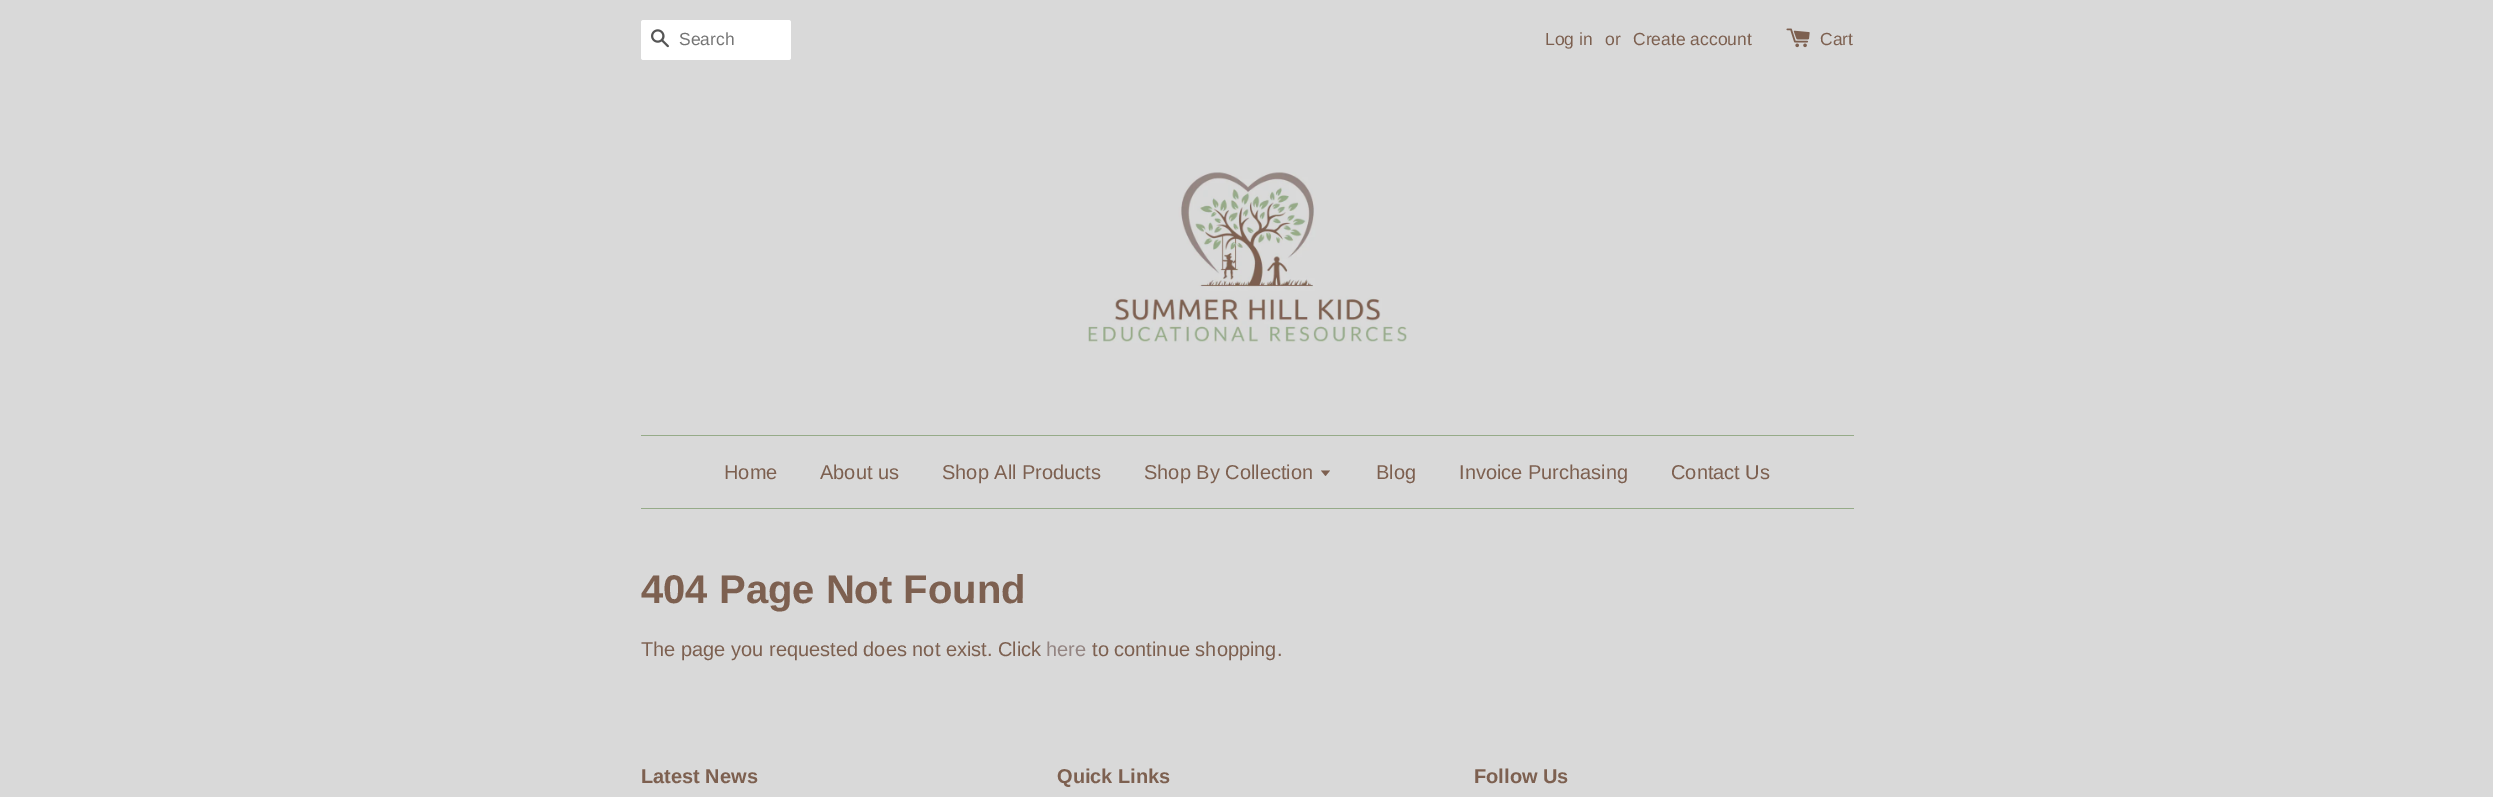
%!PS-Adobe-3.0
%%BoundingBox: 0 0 2493 797
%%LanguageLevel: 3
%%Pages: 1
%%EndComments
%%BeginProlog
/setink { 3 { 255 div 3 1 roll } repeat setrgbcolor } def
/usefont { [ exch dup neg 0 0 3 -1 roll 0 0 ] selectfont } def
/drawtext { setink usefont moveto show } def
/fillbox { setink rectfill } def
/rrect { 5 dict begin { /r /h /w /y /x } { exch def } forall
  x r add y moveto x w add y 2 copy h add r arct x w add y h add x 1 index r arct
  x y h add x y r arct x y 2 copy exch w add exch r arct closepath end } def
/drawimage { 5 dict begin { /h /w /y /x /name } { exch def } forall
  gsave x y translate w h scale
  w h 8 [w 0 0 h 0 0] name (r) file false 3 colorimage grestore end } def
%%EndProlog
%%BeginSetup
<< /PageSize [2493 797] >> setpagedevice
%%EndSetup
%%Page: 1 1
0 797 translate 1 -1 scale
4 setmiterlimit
0 0 2493 797 217 217 217 fillbox
255 255 255 setink
641 20 150 40 2.5 rrect fill
(assets/img1.rgb) 651 29 18 19 drawimage
(Search) 679 45 /LiberationSans-Regular 17.5 117 117 117 drawtext
(Log in) 1545 45 /LiberationSans-Regular 17.5 125 96 80 drawtext
(or) 1605 45 /LiberationSans-Regular 17.5 125 96 80 drawtext
(Create account) 1633 45 /LiberationSans-Regular 17.5 125 96 80 drawtext
(assets/img2.rgb) 1786 28 24 20 drawimage
(Cart) 1820 45 /LiberationSans-Regular 17.5 125 96 80 drawtext
(assets/img3.rgb) 1088 172 319 171 drawimage
641 435 1213 1 150 171 137 fillbox
641 508 1213 1 150 171 137 fillbox
(Home) 724 479 /LiberationSans-Regular 20 125 96 80 drawtext
(About us) 820 479 /LiberationSans-Regular 20 125 96 80 drawtext
(Shop All Products) 942 479 /LiberationSans-Regular 20 125 96 80 drawtext
(Shop By Collection) 1144 479 /LiberationSans-Regular 20 125 96 80 drawtext
1321 470.5 moveto 1325.5 476 lineto 1330 470.5 lineto closepath fill
(Blog) 1376 479 /LiberationSans-Regular 20 125 96 80 drawtext
(Invoice Purchasing) 1459 479 /LiberationSans-Regular 20 125 96 80 drawtext
(Contact Us) 1671 479 /LiberationSans-Regular 20 125 96 80 drawtext
(404 Page Not Found) 641 603 /LiberationSans-Bold 40 125 96 80 drawtext
(The page you requested does not exist. Click) 641 656 /LiberationSans-Regular 20 125 96 80 drawtext
(here) 1046 656 /LiberationSans-Regular 20 148 133 130 drawtext
(to continue shopping.) 1092 656 /LiberationSans-Regular 20 125 96 80 drawtext
(Latest News) 641 783 /LiberationSans-Bold 20 125 96 80 drawtext
(Quick Links) 1057 783 /LiberationSans-Bold 20 125 96 80 drawtext
(Follow Us) 1474 783 /LiberationSans-Bold 20 125 96 80 drawtext
showpage
%%EOF
